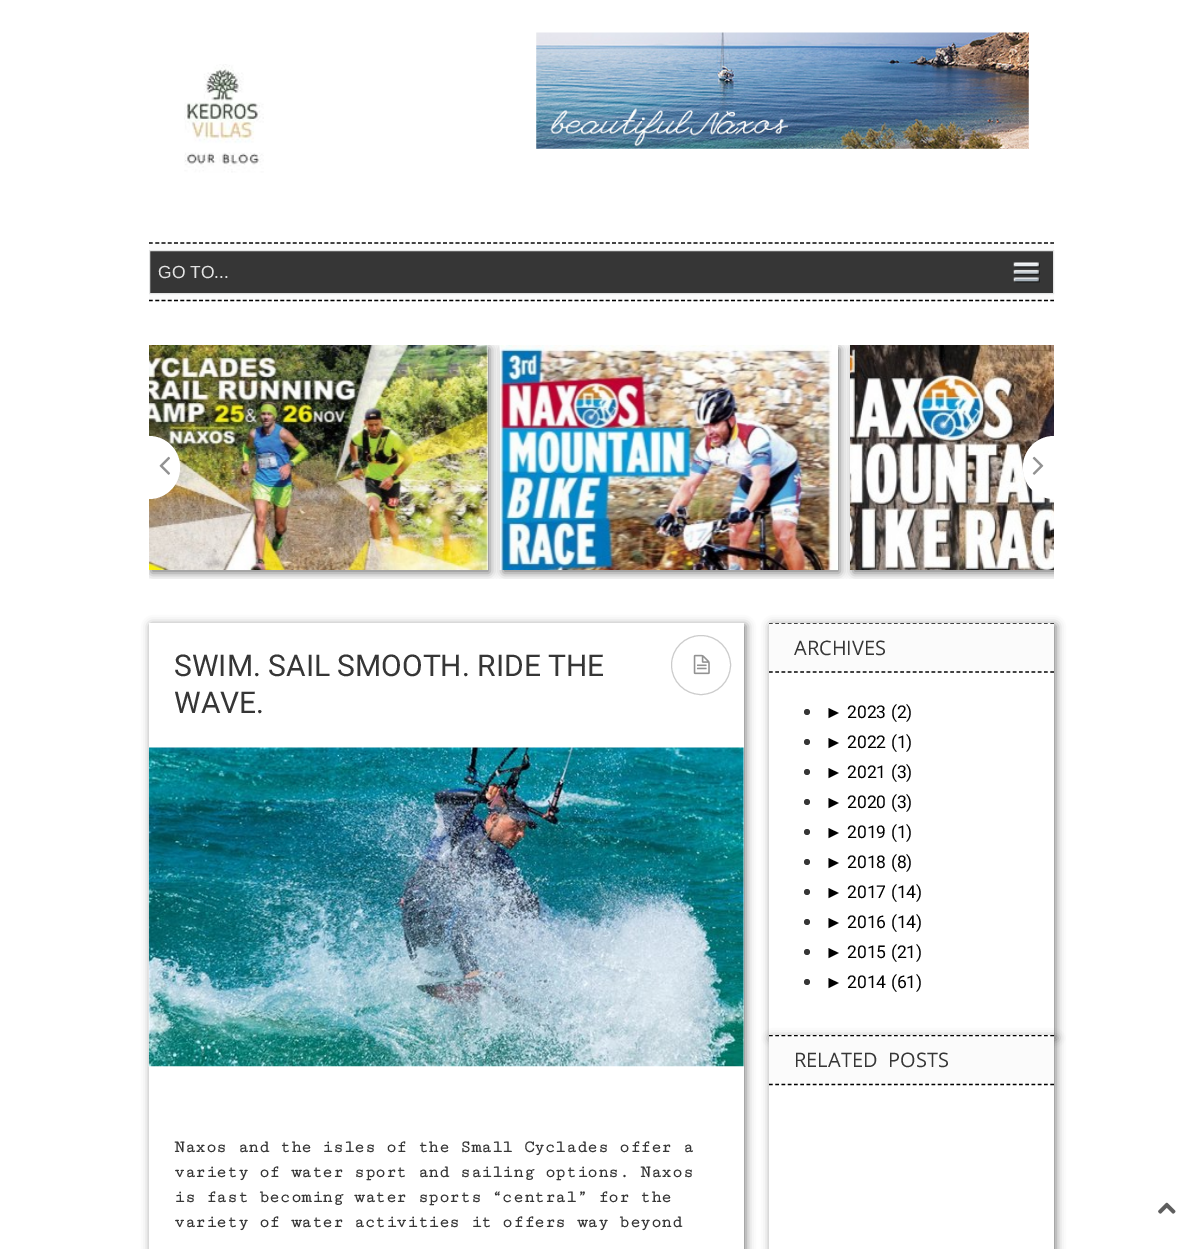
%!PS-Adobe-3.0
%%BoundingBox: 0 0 1202 1249
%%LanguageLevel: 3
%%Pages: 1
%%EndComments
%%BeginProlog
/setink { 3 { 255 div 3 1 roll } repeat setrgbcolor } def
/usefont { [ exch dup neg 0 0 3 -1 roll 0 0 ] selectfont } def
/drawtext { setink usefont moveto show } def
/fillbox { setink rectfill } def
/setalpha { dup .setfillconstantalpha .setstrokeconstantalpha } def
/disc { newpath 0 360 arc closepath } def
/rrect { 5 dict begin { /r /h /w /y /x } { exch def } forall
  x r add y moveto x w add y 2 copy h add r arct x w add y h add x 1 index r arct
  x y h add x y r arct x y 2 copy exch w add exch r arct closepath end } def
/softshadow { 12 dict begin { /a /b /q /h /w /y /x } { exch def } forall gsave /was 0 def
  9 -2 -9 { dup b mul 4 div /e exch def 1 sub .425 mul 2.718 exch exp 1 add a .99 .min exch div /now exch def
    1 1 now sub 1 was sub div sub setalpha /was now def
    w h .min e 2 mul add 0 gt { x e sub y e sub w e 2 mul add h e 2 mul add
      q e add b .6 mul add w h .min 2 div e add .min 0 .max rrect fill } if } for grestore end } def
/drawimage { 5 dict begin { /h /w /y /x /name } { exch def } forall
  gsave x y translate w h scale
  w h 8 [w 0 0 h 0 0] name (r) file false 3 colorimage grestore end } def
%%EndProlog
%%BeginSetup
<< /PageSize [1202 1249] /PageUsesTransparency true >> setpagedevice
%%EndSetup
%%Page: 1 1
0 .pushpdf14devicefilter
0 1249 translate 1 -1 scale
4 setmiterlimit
0 0 1202 1249 255 255 255 fillbox
(assets/img1.rgb) 184 64 80 109 drawimage
(assets/img2.rgb) 536 32 493 117 drawimage
149 243 905 58 251 251 251 fillbox
0 0 0 setink
1.2 setlinewidth
[3.75 2.51] 0 setdash
149 243 moveto 1054 243 lineto stroke
149 300.5 moveto 1054 300.5 lineto stroke
150 251 903 42 54 54 54 fillbox
(assets/img3.rgb) 1013 262 27 21 drawimage
227 228 228 setink
1 setlinewidth
[] 0 setdash
149.5 250.5 904 43 rectstroke
(GO TO...) 158 278 /LiberationSans-Regular 17.5 226 226 226 drawtext
gsave
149 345 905 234 rectclip
0 0 0 setink
151 348 339 225 0 4.5 0.5 softshadow
grestore
486 345 2 225 255 255 255 fillbox
(assets/img4.rgb) 149 345 339 225 drawimage
gsave
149 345 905 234 rectclip
0 0 0 setink
503 348 337 225 0 4.5 0.5 softshadow
grestore
500 345 338 225 255 255 255 fillbox
(assets/img5.rgb) 499 345 339 225 drawimage
gsave
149 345 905 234 rectclip
0 0 0 setink
853 348 338 225 0 4.5 0.5 softshadow
grestore
(assets/img6.rgb) 850 345 204 225 drawimage
149 436 moveto 166 436 180 450 180 467 curveto 180 468 lineto 180 485 166 499 149 499 curveto closepath fill
(assets/img7.rgb) 159 456 11 19 drawimage
1054 436 moveto 1054 499 lineto 1037 499 1023 485 1023 468 curveto 1023 467 lineto 1023 450 1037 436 1054 436 curveto closepath fill
(assets/img8.rgb) 1032 456 12 19 drawimage
0 0 0 setink
151 625 595 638 0 4.5 0.5 softshadow
149 623 595 626 255 255 255 fillbox
(SWIM. SAIL SMOOTH. RIDE THE) 174 676 /Roboto-Regular 30 54 54 54 drawtext
(WAVE.) 174 713 /Roboto-Regular 30 54 54 54 drawtext
204 204 204 setink
701 665 29.5 disc stroke
(assets/img9.rgb) 693 654 17 21 drawimage
(assets/img10.rgb) 148 747 596 320 drawimage
(Naxos and the isles of the Small Cyclades offer a) 174 1152 /CutiveMono-Bold 17.5 54 54 54 drawtext
(variety of water sport and sailing options. Naxos) 174 1177 /CutiveMono-Bold 17.5 54 54 54 drawtext
(is fast becoming water sports “central” for the) 174 1202 /CutiveMono-Bold 17.5 54 54 54 drawtext
(variety of water activities it offers way beyond) 174 1227 /CutiveMono-Bold 17.5 54 54 54 drawtext
0 0 0 setink
771 625 285 413 0 4.5 0.5 softshadow
769 673 285 362 255 255 255 fillbox
769 623 285 50 251 251 251 fillbox
gsave
769 623 285 412 rectclip
0 0 0 setink
1.2 setlinewidth
[3.75 2.5] 0 setdash
769 623 moveto 1054 623 lineto stroke
grestore
0 0 0 setink
1.2 setlinewidth
[3.75 2.5] 0 setdash
769 672 moveto 1054 672 lineto stroke
(ARCHIVES) 794 655 /OpenSans-Regular 20 54 54 54 drawtext
807 712 3 disc fill
(►) 825 718 /LiberationSerif-Regular 17.5 0 0 0 drawtext
(2023 \(2\)) 847 718 /Roboto-Regular 17.5 0 0 0 drawtext
54 54 54 setink
807 742 3 disc fill
(►) 825 748 /LiberationSerif-Regular 17.5 0 0 0 drawtext
(2022 \(1\)) 847 748 /Roboto-Regular 17.5 0 0 0 drawtext
54 54 54 setink
807 772 3 disc fill
(►) 825 778 /LiberationSerif-Regular 17.5 0 0 0 drawtext
(2021 \(3\)) 847 778 /Roboto-Regular 17.5 0 0 0 drawtext
54 54 54 setink
807 802 3 disc fill
(►) 825 808 /LiberationSerif-Regular 17.5 0 0 0 drawtext
(2020 \(3\)) 847 808 /Roboto-Regular 17.5 0 0 0 drawtext
54 54 54 setink
807 832 3 disc fill
(►) 825 838 /LiberationSerif-Regular 17.5 0 0 0 drawtext
(2019 \(1\)) 847 838 /Roboto-Regular 17.5 0 0 0 drawtext
54 54 54 setink
807 862 3 disc fill
(►) 825 868 /LiberationSerif-Regular 17.5 0 0 0 drawtext
(2018 \(8\)) 847 868 /Roboto-Regular 17.5 0 0 0 drawtext
54 54 54 setink
807 892 3 disc fill
(►) 825 898 /LiberationSerif-Regular 17.5 0 0 0 drawtext
(2017 \(14\)) 847 898 /Roboto-Regular 17.5 0 0 0 drawtext
54 54 54 setink
807 922 3 disc fill
(►) 825 928 /LiberationSerif-Regular 17.5 0 0 0 drawtext
(2016 \(14\)) 847 928 /Roboto-Regular 17.5 0 0 0 drawtext
54 54 54 setink
807 952 3 disc fill
(►) 825 958 /LiberationSerif-Regular 17.5 0 0 0 drawtext
(2015 \(21\)) 847 958 /Roboto-Regular 17.5 0 0 0 drawtext
54 54 54 setink
807 982 3 disc fill
(►) 825 988 /LiberationSerif-Regular 17.5 0 0 0 drawtext
(2014 \(61\)) 847 988 /Roboto-Regular 17.5 0 0 0 drawtext
771 1038 285 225 0 4.5 0.5 softshadow
769 1085 285 164 255 255 255 fillbox
769 1035 285 50 251 251 251 fillbox
gsave
769 1035 285 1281 rectclip
0 0 0 setink
769 1035.5 moveto 1054 1035.5 lineto stroke
grestore
0 0 0 setink
769 1084.5 moveto 1054 1084.5 lineto stroke
/OpenSans-Regular 20 usefont
54 54 54 setink
794 1067 moveto 6 0 32 (RELATED POSTS) widthshow
(assets/img11.rgb) 1158 1202 18 12 drawimage
.poppdf14devicefilter showpage
%%EOF
